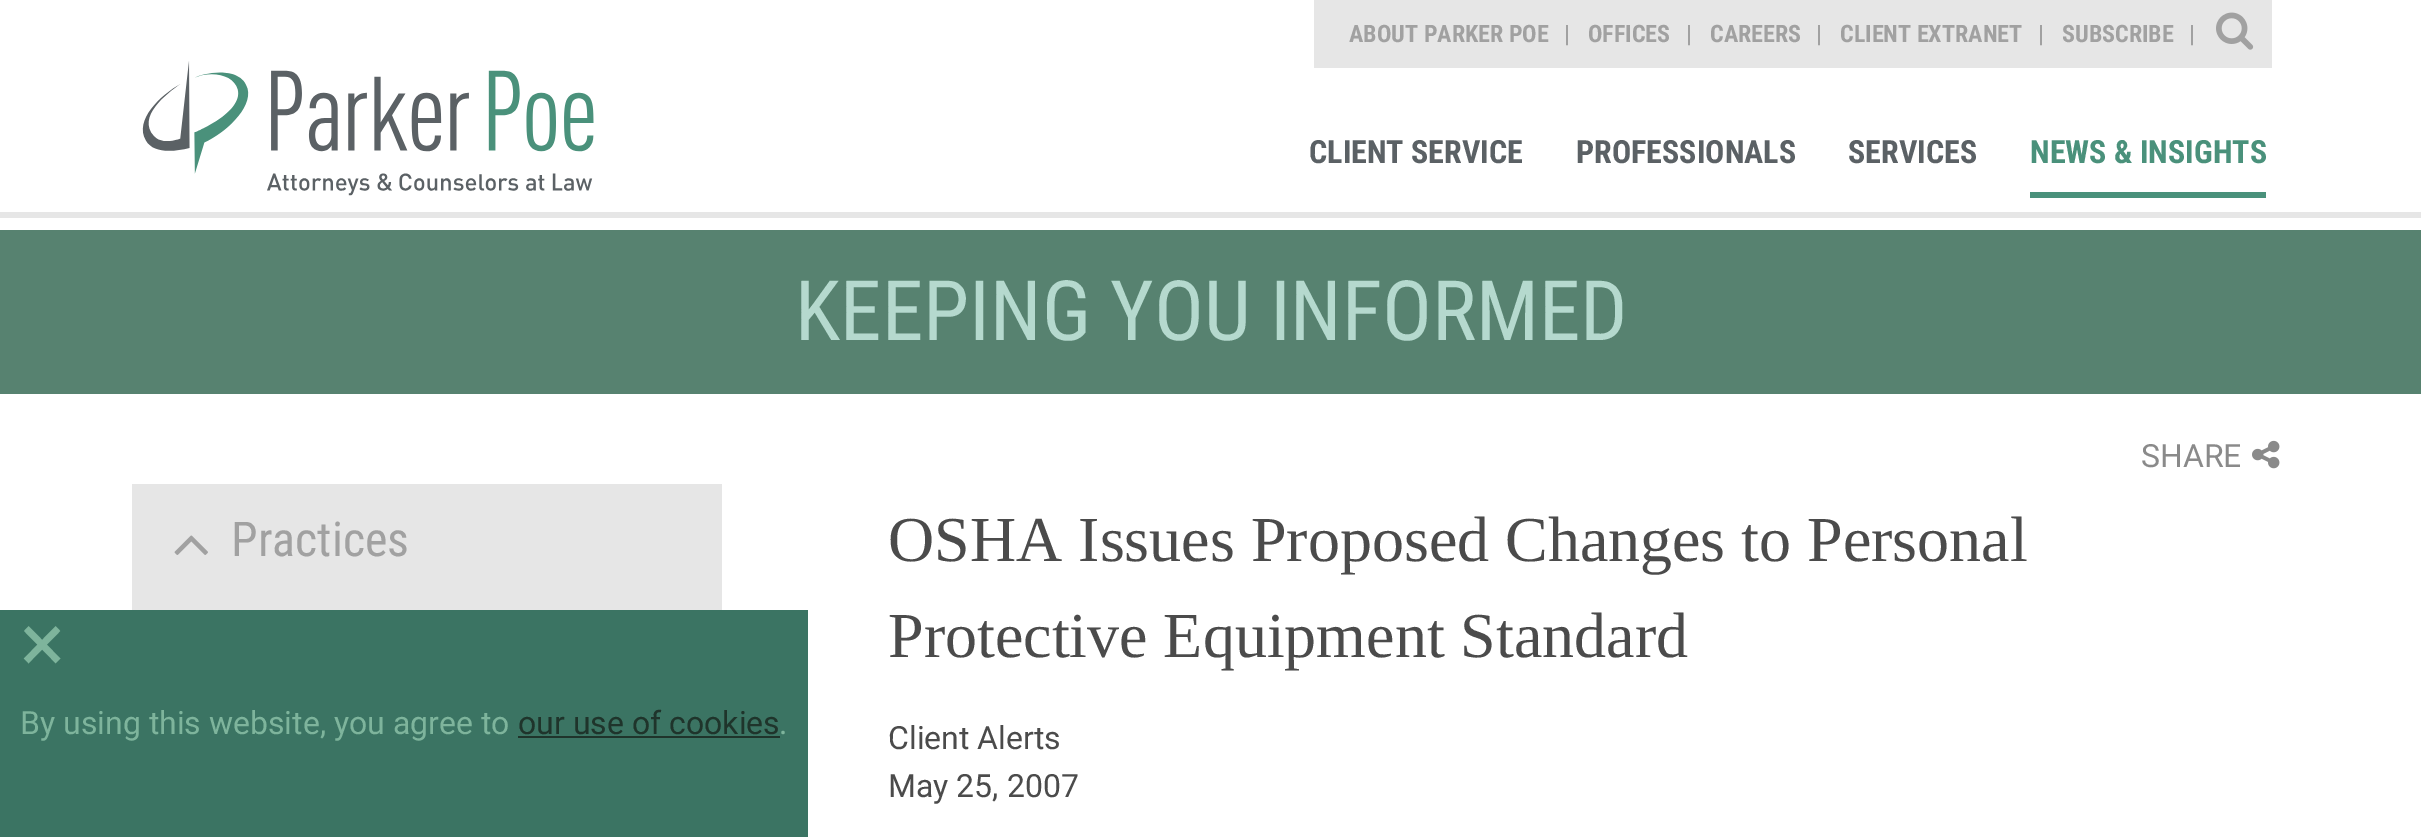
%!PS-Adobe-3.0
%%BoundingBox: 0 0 2421 837
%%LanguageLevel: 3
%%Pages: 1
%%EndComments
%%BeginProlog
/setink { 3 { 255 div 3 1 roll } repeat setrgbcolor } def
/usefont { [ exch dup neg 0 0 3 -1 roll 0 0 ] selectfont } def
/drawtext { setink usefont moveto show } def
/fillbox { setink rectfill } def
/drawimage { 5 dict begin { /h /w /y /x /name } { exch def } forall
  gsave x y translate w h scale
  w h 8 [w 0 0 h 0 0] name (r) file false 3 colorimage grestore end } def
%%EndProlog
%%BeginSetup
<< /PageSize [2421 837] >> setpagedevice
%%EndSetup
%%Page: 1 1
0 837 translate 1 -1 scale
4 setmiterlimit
0 0 2421 837 255 255 255 fillbox
0 212 2421 6 230 230 230 fillbox
(assets/img1.rgb) 142 61 452 135 drawimage
1314 0 958 68 230 230 230 fillbox
(ABOUT PARKER POE) 1349 42 /RobotoCondensed-Bold 24 161 161 161 drawtext
(|) 1564 42 /RobotoCondensed-Bold 24 161 161 161 drawtext
(OFFICES) 1588 42 /RobotoCondensed-Bold 24 161 161 161 drawtext
(|) 1686 42 /RobotoCondensed-Bold 24 161 161 161 drawtext
(CAREERS) 1710 42 /RobotoCondensed-Bold 24 161 161 161 drawtext
(|) 1816 42 /RobotoCondensed-Bold 24 161 161 161 drawtext
(CLIENT EXTRANET) 1840 42 /RobotoCondensed-Bold 24 161 161 161 drawtext
(|) 2038 42 /RobotoCondensed-Bold 24 161 161 161 drawtext
(SUBSCRIBE) 2062 42 /RobotoCondensed-Bold 24 161 161 161 drawtext
(|) 2189 42 /RobotoCondensed-Bold 24 161 161 161 drawtext
(assets/img2.rgb) 2216 12 38 38 drawimage
(CLIENT SERVICE) 1309 163 /RobotoCondensed-Bold 32 91 97 101 drawtext
(PROFESSIONALS) 1576 163 /RobotoCondensed-Bold 32 91 97 101 drawtext
(SERVICES) 1848 163 /RobotoCondensed-Bold 32 91 97 101 drawtext
(NEWS & INSIGHTS) 2030 163 /RobotoCondensed-Bold 32 74 145 123 drawtext
2030 192 236 6 74 145 123 fillbox
0 230 2421 164 87 130 112 fillbox
(KEEPING YOU INFORMED) 795 340 /RobotoCondensed-Regular 83.25 181 217 206 drawtext
(SHARE) 2141 467 /Roboto-Regular 32 138 138 138 drawtext
(assets/img3.rgb) 2252 440 28 29 drawimage
132 484 590 126 230 230 230 fillbox
(assets/img4.rgb) 174 535 34 20 drawimage
(Practices) 231 556 /RobotoCondensed-Regular 48 161 161 161 drawtext
(OSHA Issues Proposed Changes to Personal) 888 561 /LiberationSerif-Regular 64 75 75 75 drawtext
(Protective Equipment Standard) 888 657 /LiberationSerif-Regular 64 75 75 75 drawtext
(Client Alerts) 888 749 /Roboto-Regular 32 75 75 75 drawtext
(May 25, 2007) 888 797 /Roboto-Regular 32 75 75 75 drawtext
0 610 808 227 59 116 99 fillbox
(×) 20 672 /Roboto-Regular 84 126 180 156 drawtext
(By using this website, you agree to) 20 734 /Roboto-Regular 32 126 180 156 drawtext
(our use of cookies) 518 734 /Roboto-Regular 32 31 52 43 drawtext
518 736 262 2 31 52 43 fillbox
(.) 779 734 /Roboto-Regular 32 126 180 156 drawtext
showpage
%%EOF
